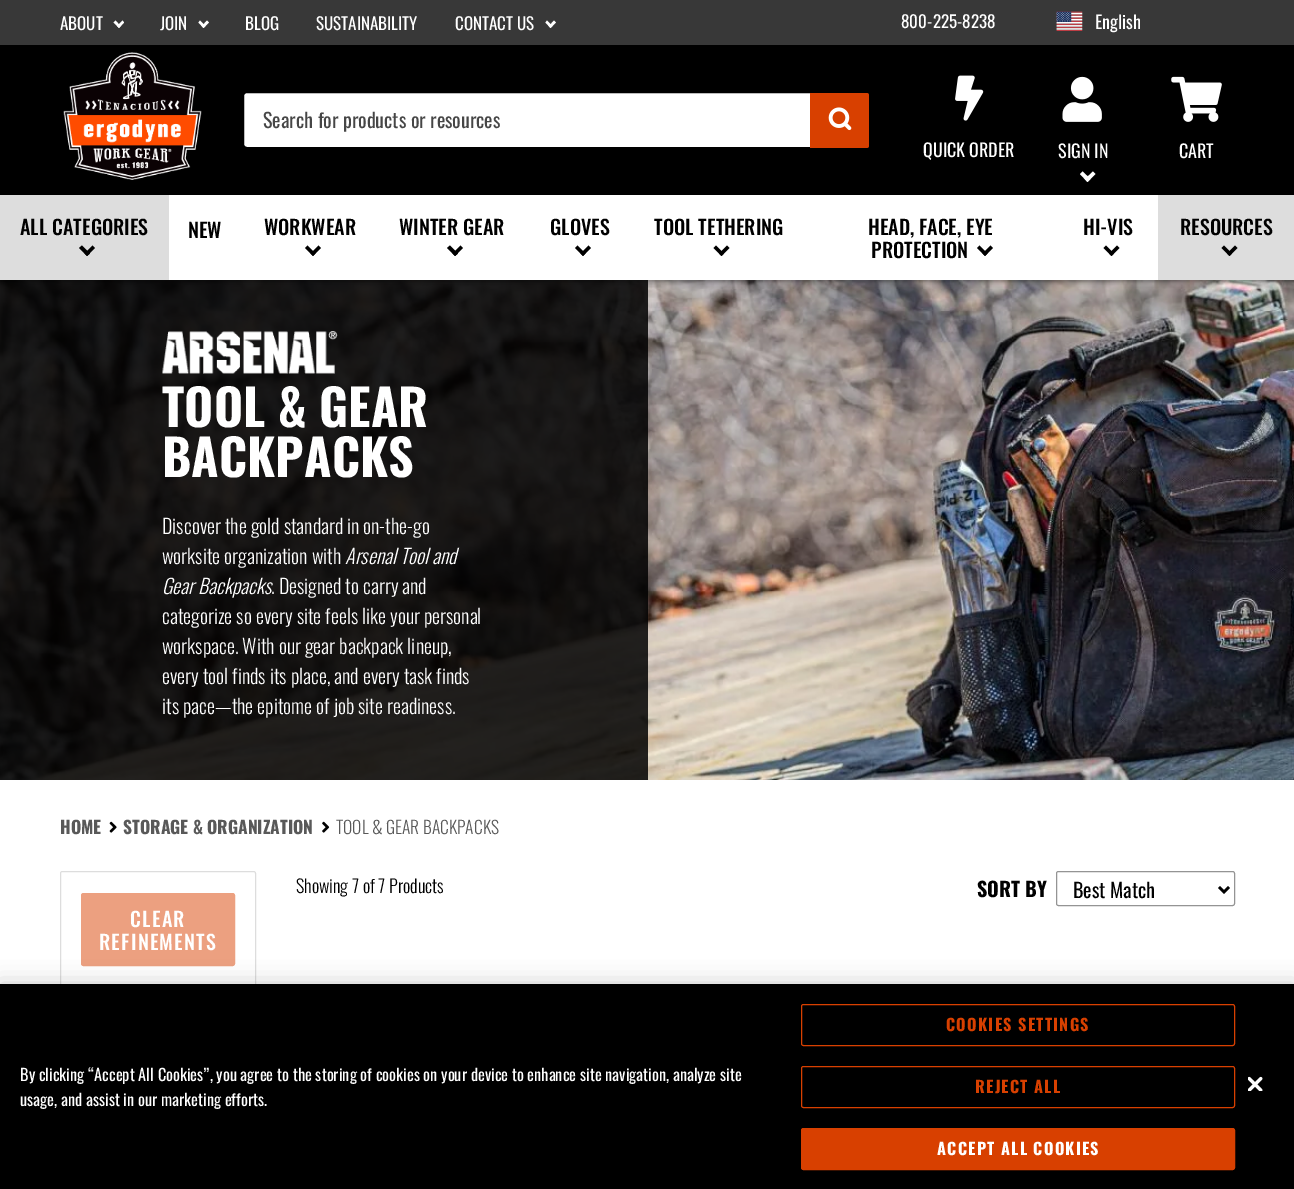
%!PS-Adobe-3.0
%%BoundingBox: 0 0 1294 1189
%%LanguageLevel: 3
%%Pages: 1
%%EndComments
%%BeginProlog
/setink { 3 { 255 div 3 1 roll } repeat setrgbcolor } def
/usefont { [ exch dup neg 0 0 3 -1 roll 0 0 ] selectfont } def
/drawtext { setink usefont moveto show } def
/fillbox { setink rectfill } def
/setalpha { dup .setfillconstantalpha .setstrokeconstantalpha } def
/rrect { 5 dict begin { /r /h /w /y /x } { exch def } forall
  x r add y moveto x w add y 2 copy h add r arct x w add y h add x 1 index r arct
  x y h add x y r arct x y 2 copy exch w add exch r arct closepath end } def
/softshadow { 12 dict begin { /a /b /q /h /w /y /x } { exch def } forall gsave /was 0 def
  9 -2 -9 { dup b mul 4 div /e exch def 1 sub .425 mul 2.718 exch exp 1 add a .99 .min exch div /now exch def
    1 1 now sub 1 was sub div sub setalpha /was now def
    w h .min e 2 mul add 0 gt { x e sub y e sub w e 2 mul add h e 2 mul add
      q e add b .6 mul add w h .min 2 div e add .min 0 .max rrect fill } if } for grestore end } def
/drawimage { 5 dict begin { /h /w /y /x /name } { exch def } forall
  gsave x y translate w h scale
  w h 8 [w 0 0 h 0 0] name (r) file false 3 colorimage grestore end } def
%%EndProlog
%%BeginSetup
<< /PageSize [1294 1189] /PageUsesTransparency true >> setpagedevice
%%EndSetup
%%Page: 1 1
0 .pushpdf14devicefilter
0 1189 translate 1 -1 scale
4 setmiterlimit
0 0 1294 1189 255 255 255 fillbox
0 0 1294 45 56 56 56 fillbox
(ABOUT) 60 30 /Oswald-Regular 17 255 255 255 drawtext
122.5 20.5 moveto 124 22.5 lineto 119 28 lineto 117 26 lineto closepath fill
115.5 20.5 moveto 120.5 26 lineto 119 28 lineto 113.5 22.5 lineto closepath fill
(JOIN) 160 30 /Oswald-Regular 17 255 255 255 drawtext
207 20.5 moveto 209 22.5 lineto 203.5 28 lineto 202 26 lineto closepath fill
200 20.5 moveto 205.5 26 lineto 203.5 28 lineto 198.5 22.5 lineto closepath fill
(BLOG) 245 30 /Oswald-Regular 17 255 255 255 drawtext
(SUSTAINABILITY) 316 30 /Oswald-Regular 17 255 255 255 drawtext
(CONTACT US) 455 30 /Oswald-Regular 17 255 255 255 drawtext
554 20.5 moveto 556 22.5 lineto 550.5 28 lineto 549 26 lineto closepath fill
547 20.5 moveto 552.5 26 lineto 550.5 28 lineto 545.5 22.5 lineto closepath fill
(800-225-8238) 901 28 /Oswald-Regular 17 255 255 255 drawtext
(assets/img1.rgb) 1056 11 27 20 drawimage
(English) 1095 29 /Oswald-Regular 18 255 255 255 drawtext
0 45 1294 150 0 0 0 fillbox
(assets/img2.rgb) 63 52 139 128 drawimage
255 255 255 setink
242.5 91.5 627 57 4.5 rrect gsave fill grestore
0 0 0 setink
3 setlinewidth
stroke
(Search for products or resources) 263 128 /Oswald-Regular 20 70 70 70 drawtext
216 64 0 setink
810 93 moveto 866.5 93 lineto 868 93 869 94 869 95.5 curveto 869 145.5 lineto 869 147 868 148 866.5 148 curveto 810 148 lineto closepath fill
(assets/img3.rgb) 828 107 24 24 drawimage
(assets/img4.rgb) 955 75 29 46 drawimage
(QUICK ORDER) 923 157 /Oswald-Regular 18 255 255 255 drawtext
(assets/img5.rgb) 1062 76 40 46 drawimage
(SIGN IN) 1058 158 /Oswald-Regular 18 255 255 255 drawtext
1093 171.5 moveto 1095.5 174 lineto 1087.5 182 lineto 1085 179 lineto closepath fill
1082.5 171.5 moveto 1090.5 179 lineto 1087.5 182 lineto 1080 174 lineto closepath fill
(assets/img6.rgb) 1171 76 51 46 drawimage
(CART) 1179 158 /Oswald-Regular 18 255 255 255 drawtext
(assets/img7.rgb) 0 280 1294 500 drawimage
0.85 setalpha
0 280 648 500 0 0 0 fillbox
gsave
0 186 moveto 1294 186 lineto 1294 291 lineto 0 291 lineto closepath 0 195 moveto 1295 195 lineto 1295 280 lineto 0 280 lineto closepath eoclip newpath
1 setalpha
0 196 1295 85 0 3 0.5 softshadow
grestore
1 setalpha
0 195 169 85 221 221 221 fillbox
(ALL CATEGORIES) 20 235 /Oswald-Medium 20 0 0 0 drawtext
92.5 245.5 moveto 95 248 lineto 87 256 lineto 84.5 253.5 lineto closepath fill
82 245.5 moveto 90 253.5 lineto 87 256 lineto 79 248 lineto closepath fill
(NEW) 188 238 /Oswald-Medium 20 0 0 0 drawtext
(WORKWEAR) 264 235 /Oswald-Medium 20 0 0 0 drawtext
318.5 245.5 moveto 321 248 lineto 313 256 lineto 310.5 253.5 lineto closepath fill
307.5 245.5 moveto 315.5 253.5 lineto 313 256 lineto 305 248 lineto closepath fill
(WINTER GEAR) 399 235 /Oswald-Medium 20 0 0 0 drawtext
460.5 245.5 moveto 463 248 lineto 455 256 lineto 452.5 253.5 lineto closepath fill
450 245.5 moveto 458 253.5 lineto 455 256 lineto 447 248 lineto closepath fill
(GLOVES) 550 235 /Oswald-Medium 20 0 0 0 drawtext
588.5 245.5 moveto 591 248 lineto 583 256 lineto 580.5 253.5 lineto closepath fill
577.5 245.5 moveto 585.5 253.5 lineto 583 256 lineto 575 248 lineto closepath fill
(TOOL TETHERING) 654 235 /Oswald-Medium 20 0 0 0 drawtext
727 245.5 moveto 729.5 248 lineto 721.5 256 lineto 719 253.5 lineto closepath fill
716 245.5 moveto 724 253.5 lineto 721.5 256 lineto 713.5 248 lineto closepath fill
(HEAD, FACE, EYE) 868 235 /Oswald-Medium 20 0 0 0 drawtext
(PROTECTION) 871 258 /Oswald-Medium 20 0 0 0 drawtext
990.5 245.5 moveto 993 248 lineto 985 256 lineto 982.5 253.5 lineto closepath fill
979.5 245.5 moveto 987.5 253.5 lineto 985 256 lineto 977 248 lineto closepath fill
(HI-VIS) 1083 235 /Oswald-Medium 20 0 0 0 drawtext
1117 245.5 moveto 1119.5 248 lineto 1111.5 256 lineto 1109 253.5 lineto closepath fill
1106 245.5 moveto 1114 253.5 lineto 1111.5 256 lineto 1103.5 248 lineto closepath fill
1158 195 136 85 221 221 221 fillbox
(RESOURCES) 1180 235 /Oswald-Medium 20 0 0 0 drawtext
1235 245.5 moveto 1237.5 248 lineto 1229.5 256 lineto 1227 253.5 lineto closepath fill
1224 245.5 moveto 1232 253.5 lineto 1229.5 256 lineto 1221.5 248 lineto closepath fill
(assets/img8.rgb) 162 331 176 43 drawimage
(TOOL & GEAR) 162 427 /Oswald-Bold 50 255 255 255 drawtext
(BACKPACKS) 162 477 /Oswald-Bold 50 255 255 255 drawtext
(Discover the gold standard in on-the-go) 162 534 /Oswald-Light 20 255 255 255 drawtext
(worksite organization with) 162 564 /Oswald-Light 20 255 255 255 drawtext
(Arsenal Tool and) 345 564 /Oswald-LightItalic 20 255 255 255 drawtext
(Gear Backpacks) 162 594 /Oswald-LightItalic 20 255 255 255 drawtext
(. Designed to carry and) 271 594 /Oswald-Light 20 255 255 255 drawtext
(categorize so every site feels like your personal) 162 624 /Oswald-Light 20 255 255 255 drawtext
(workspace. With our gear backpack lineup,) 162 654 /Oswald-Light 20 255 255 255 drawtext
(every tool finds its place, and every task finds) 162 684 /Oswald-Light 20 255 255 255 drawtext
(its pace—the epitome of job site readiness.) 162 714 /Oswald-Light 20 255 255 255 drawtext
(HOME) 60 834 /Oswald-Bold 17.5 89 89 89 drawtext
(assets/img9.rgb) 109 821 8 12 drawimage
(STORAGE & ORGANIZATION) 123 834 /Oswald-Bold 17.5 89 89 89 drawtext
(assets/img10.rgb) 322 821 8 12 drawimage
(TOOL & GEAR BACKPACKS) 336 834 /Oswald-Light 17.5 89 89 89 drawtext
(Showing 7 of 7 Products) 296 893 /Oswald-Light 18 0 0 0 drawtext
(SORT BY) 977 897 /Oswald-Bold 20 0 0 0 drawtext
148 148 148 setink
1 setlinewidth
1056.5 871.5 178 34 2 rrect stroke
0 0 0 setink
2.5 setlinewidth
1219 887 moveto 1224 892 lineto 1229 887 lineto stroke
(Best Match) 1073 898 /Oswald-Regular 20 0 0 0 drawtext
221 221 221 setink
1 setlinewidth
60.5 871.5 195 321 2 rrect stroke
236 160 128 setink
83 895 150 69 0.5 rrect gsave fill grestore
4 setlinewidth
stroke
/Oswald-Medium 20 usefont
255 255 255 setink
130 927 moveto 1.25 0 (CLEAR) ashow
99 950 moveto 1.25 0 (REFINEMENTS) ashow
0 0 0 setink
0 984 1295 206 0 11 0.2 softshadow
0 984 1294 205 0 0 0 fillbox
(By clicking “Accept All Cookies”, you agree to the storing of cookies on your device to enhance site navigation, analyze site) 20 1081 /Oswald-Regular 16.25 255 255 255 drawtext
(usage, and assist in our marketing efforts.) 20 1106 /Oswald-Regular 16.25 255 255 255 drawtext
216 64 0 setink
1 setlinewidth
801.5 1004.5 433 41 2 rrect stroke
/Oswald-Bold 16.25 usefont
946 1031 moveto 1.25 0 (COOKIES SETTINGS) ashow
801.5 1066.5 433 41 2 rrect stroke
975 1093 moveto 1.25 0 (REJECT ALL) ashow
801.5 1128.5 433 41 2 rrect gsave fill grestore
stroke
255 255 255 setink
937 1155 moveto 1.25 0 (ACCEPT ALL COOKIES) ashow
(assets/img11.rgb) 1248 1076 15 15 drawimage
.poppdf14devicefilter showpage
%%EOF
